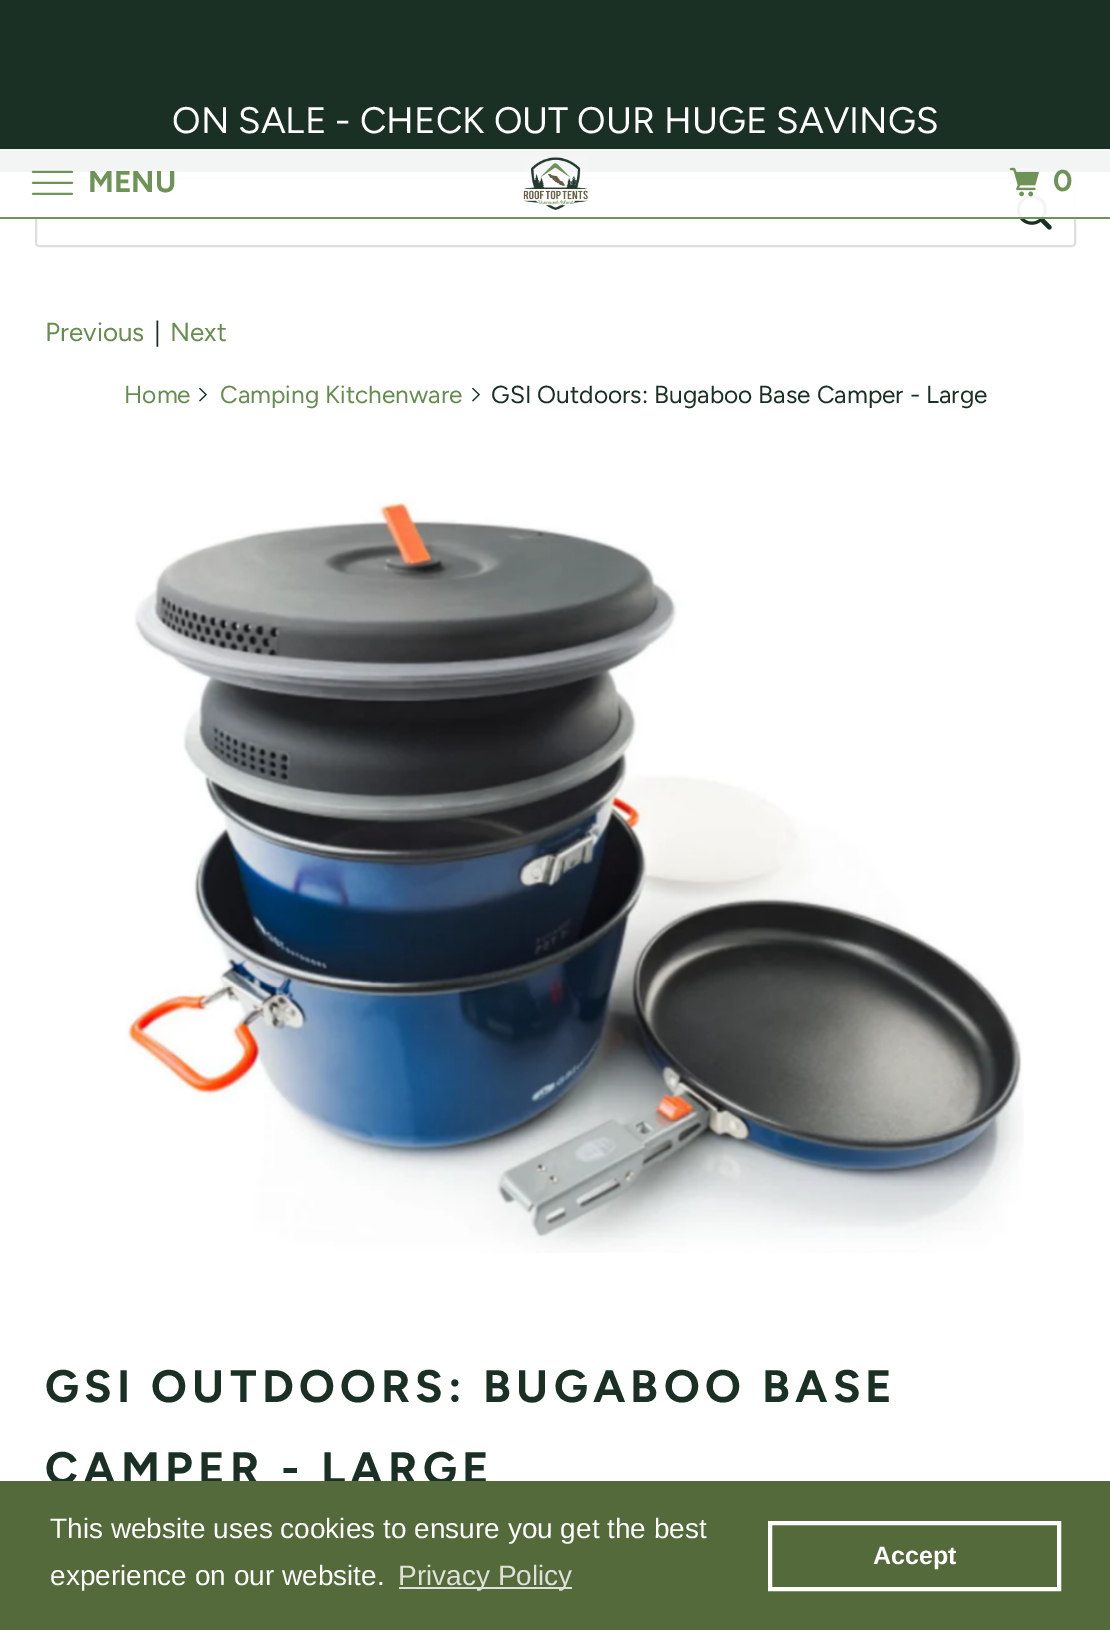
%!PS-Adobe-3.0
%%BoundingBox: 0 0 1110 1630
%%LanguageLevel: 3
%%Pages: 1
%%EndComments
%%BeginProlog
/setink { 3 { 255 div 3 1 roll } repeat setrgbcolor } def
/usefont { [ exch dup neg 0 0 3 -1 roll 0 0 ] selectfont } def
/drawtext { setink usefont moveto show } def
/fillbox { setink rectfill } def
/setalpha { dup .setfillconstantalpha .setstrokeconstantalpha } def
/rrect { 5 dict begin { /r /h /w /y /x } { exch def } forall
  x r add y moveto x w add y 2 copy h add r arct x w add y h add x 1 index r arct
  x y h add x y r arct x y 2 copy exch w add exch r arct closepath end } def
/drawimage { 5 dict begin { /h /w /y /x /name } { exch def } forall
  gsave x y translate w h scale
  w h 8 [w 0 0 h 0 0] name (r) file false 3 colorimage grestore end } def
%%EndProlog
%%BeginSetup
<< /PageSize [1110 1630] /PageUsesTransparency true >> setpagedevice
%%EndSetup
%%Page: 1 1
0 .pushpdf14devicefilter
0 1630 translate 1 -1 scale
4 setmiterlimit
0 0 1110 1630 26 48 36 fillbox
0 172 1110 1309 255 255 255 fillbox
(ON SALE - CHECK OUT OUR HUGE SAVINGS) 172 133 /Figtree-Regular 36.75 255 255 255 drawtext
223 223 223 setink
2 setlinewidth
36 178 1039 68 3 rrect stroke
(assets/img1.rgb) 1016 194 36 36 drawimage
(Previous) 45 341 /Figtree-Regular 26 102 141 78 drawtext
(|) 154 341 /Figtree-Regular 26 26 48 36 drawtext
(Next) 170 341 /Figtree-Regular 26 102 141 78 drawtext
(Home) 124 403 /Figtree-Regular 24.5 102 141 78 drawtext
(assets/img2.rgb) 199 387 8 15 drawimage
(Camping Kitchenware) 220 403 /Figtree-Regular 24.5 102 141 78 drawtext
(assets/img2.rgb) 472 387 8 15 drawimage
(GSI Outdoors: Bugaboo Base Camper - Large) 491 403 /Figtree-Regular 24.5 26 48 36 drawtext
(assets/img3.rgb) 125 498 899 755 drawimage
/Figtree-Bold 45.5 usefont
45 1402 moveto 5.25 0 (GSI OUTDOORS: BUGABOO BASE) ashow
45 1484 moveto 5.25 0 (CAMPER - LARGE) ashow
0 1481 1110 149 85 106 59 fillbox
(This website uses cookies to ensure you get the best) 50 1538 /LiberationSans-Regular 28 255 255 255 drawtext
(experience on our website.) 50 1585 /LiberationSans-Regular 28 255 255 255 drawtext
399 1587 173 2 221 225 216 fillbox
(Privacy Policy) 398 1585 /LiberationSans-Regular 28 221 225 216 drawtext
255 255 255 setink
4 setlinewidth
770 1523 289 66 rectstroke
(Accept) 873 1564 /LiberationSans-Bold 25 255 255 255 drawtext
0.95 setalpha
0 149 1110 70 255 255 255 fillbox
0 217 1110 2 102 141 78 fillbox
1 setalpha
(assets/img4.rgb) 31 170 43 25 drawimage
(MENU) 88 192 /Figtree-Bold 30 110 147 87 drawtext
(assets/img5.rgb) 523 157 65 53 drawimage
(assets/img6.rgb) 1009 167 30 30 drawimage
(0) 1053 191 /Figtree-Bold 30 110 147 87 drawtext
.poppdf14devicefilter showpage
%%EOF
